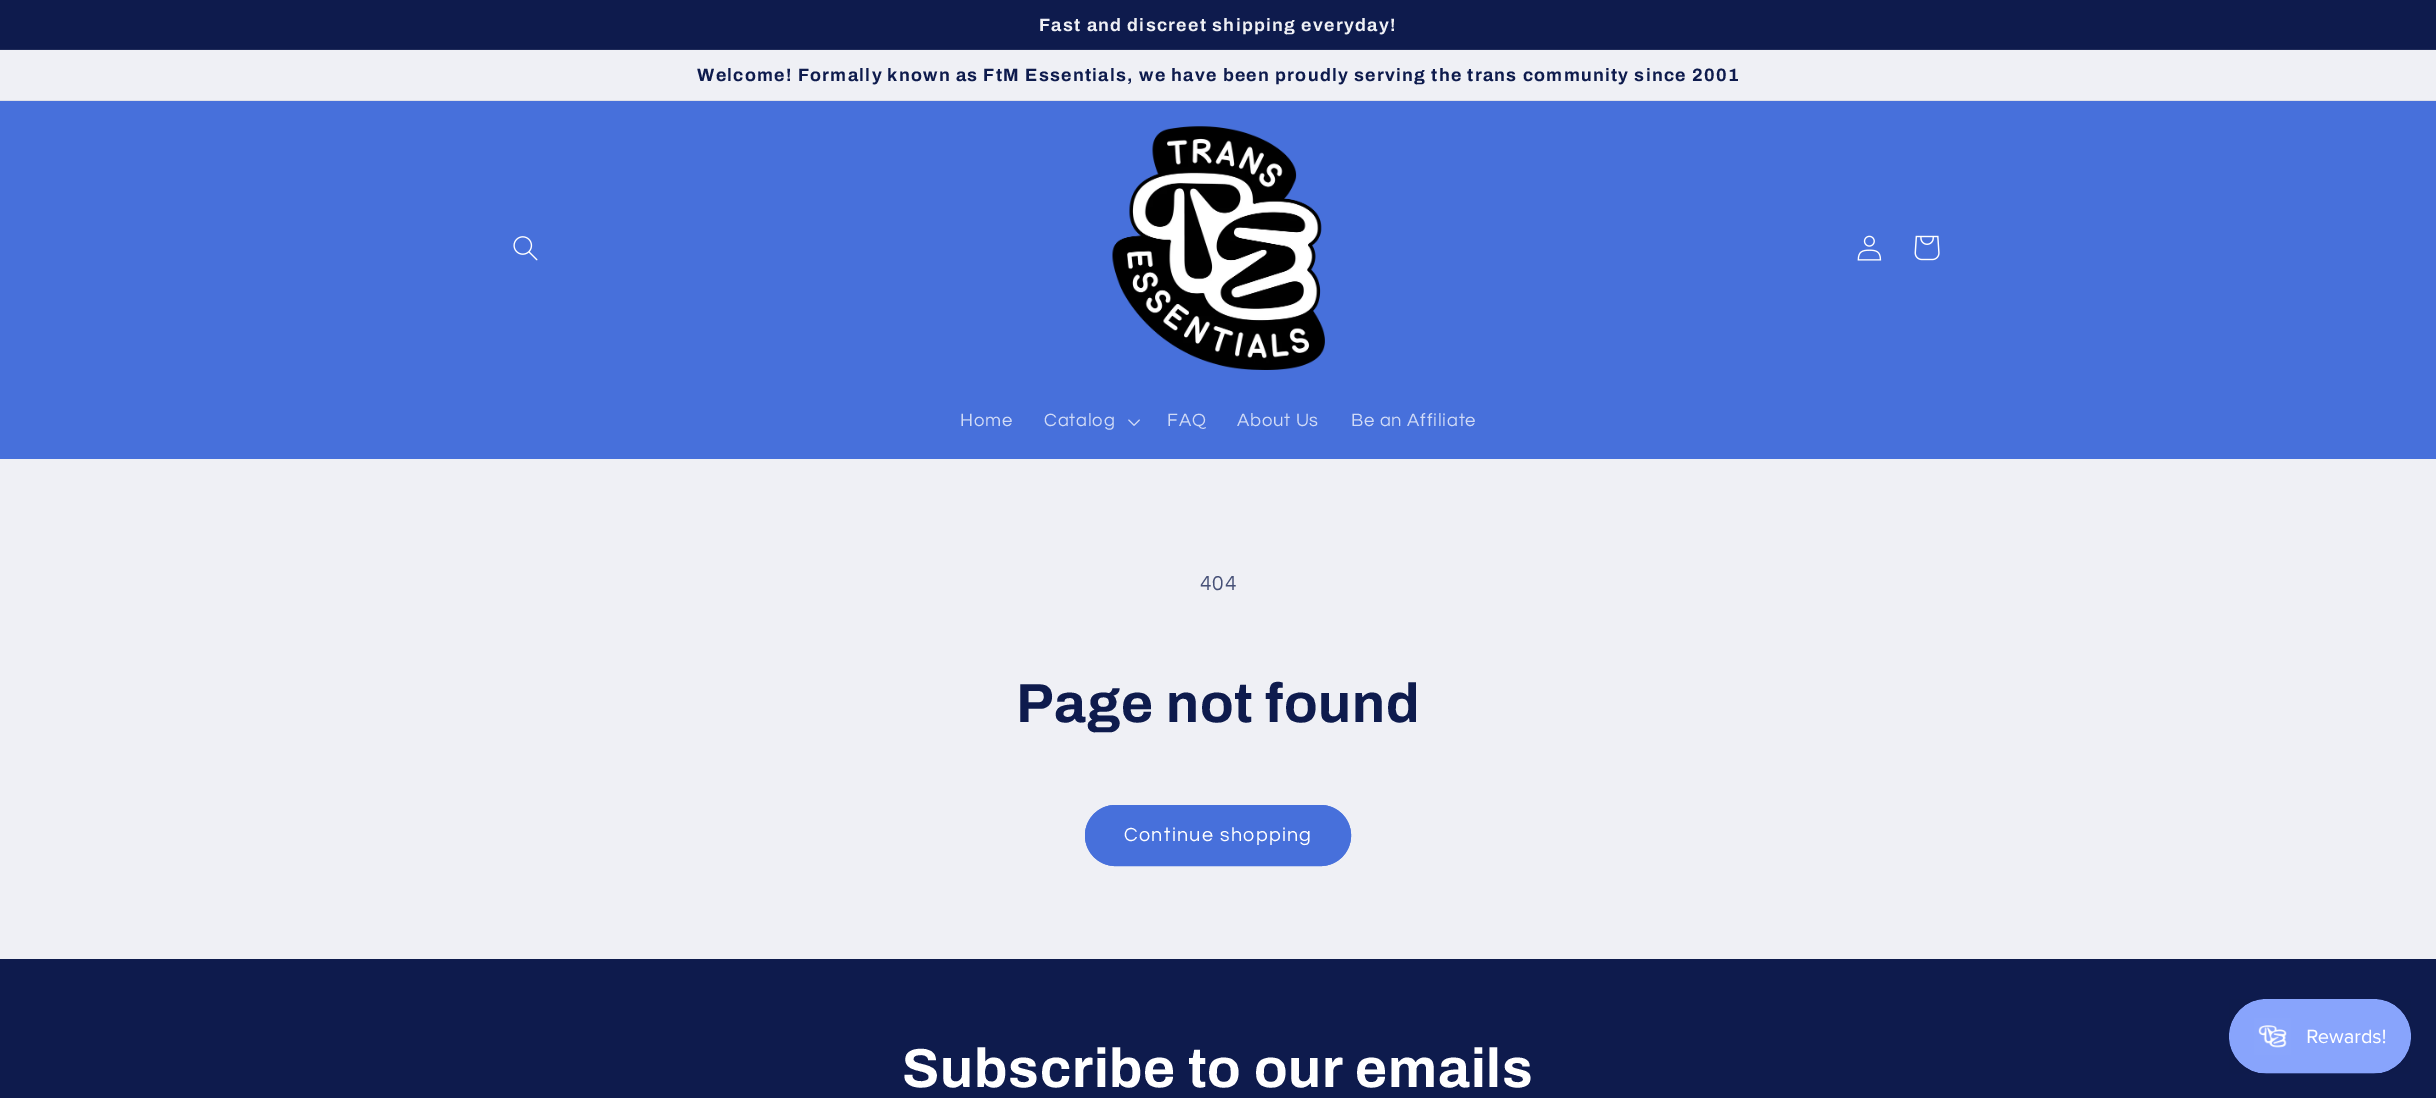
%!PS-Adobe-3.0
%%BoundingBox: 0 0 2436 1098
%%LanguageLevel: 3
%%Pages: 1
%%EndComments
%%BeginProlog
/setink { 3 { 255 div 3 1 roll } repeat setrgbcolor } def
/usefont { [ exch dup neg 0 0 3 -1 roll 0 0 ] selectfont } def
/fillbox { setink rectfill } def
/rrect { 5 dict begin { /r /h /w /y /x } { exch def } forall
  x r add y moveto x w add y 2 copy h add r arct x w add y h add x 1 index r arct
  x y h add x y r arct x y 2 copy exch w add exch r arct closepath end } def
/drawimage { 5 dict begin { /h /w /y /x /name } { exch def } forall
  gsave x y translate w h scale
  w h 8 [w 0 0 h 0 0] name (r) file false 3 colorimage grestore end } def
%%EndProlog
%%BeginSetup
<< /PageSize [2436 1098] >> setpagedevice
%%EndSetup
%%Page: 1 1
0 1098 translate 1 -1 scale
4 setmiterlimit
0 0 2436 1098 239 240 245 fillbox
0 0 2436 49 14 27 77 fillbox
0 49 2436 1 32 44 90 fillbox
/Archivo-Bold 17.88 usefont
239 240 245 setink
1039 31 moveto 1.31 0 (Fast and discreet shipping everyday!) ashow
0 100 2436 1 221 223 232 fillbox
14 27 77 setink
697 81 moveto 1.31 0 (Welcome! Formally known as FtM Essentials, we have been proudly serving the trans community since 2001) ashow
0 101 2436 358 71 112 219 fillbox
(assets/img1.rgb) 513 236 25 25 drawimage
(assets/img2.rgb) 1112 126 213 244 drawimage
(assets/img3.rgb) 1857 235 25 26 drawimage
(assets/img4.rgb) 1914 235 26 26 drawimage
/Questrial-Regular 18.5 usefont
209 219 246 setink
960 426 moveto 0.75 0 (Home) ashow
1044 426 moveto 0.75 0 (Catalog) ashow
(assets/img5.rgb) 1128 419 12 7 drawimage
1167 426 moveto 0.75 0 (FAQ) ashow
1237 426 moveto 0.75 0 (About Us) ashow
1351 426 moveto 0.75 0 (Be an Affiliate) ashow
/Questrial-Regular 21 usefont
70 80 119 setink
1200 590 moveto 0.75 0 (404) ashow
/Archivo-Bold 55 usefont
14 27 77 setink
1016 722 moveto 0.8 0 (Page not found) ashow
71 112 219 setink
1085 805 266 61 30.5 rrect fill
1085.5 805.5 265 60 30 rrect stroke
/Questrial-Regular 19.75 usefont
255 255 255 setink
1124 841 moveto 1.31 0 (Continue shopping) ashow
0 959 2436 139 14 27 77 fillbox
/Archivo-Bold 55 usefont
255 255 255 setink
902 1087 moveto 0.8 0 (Subscribe to our emails) ashow
(assets/img6.rgb) 2229 999 182 75 drawimage
showpage
%%EOF
